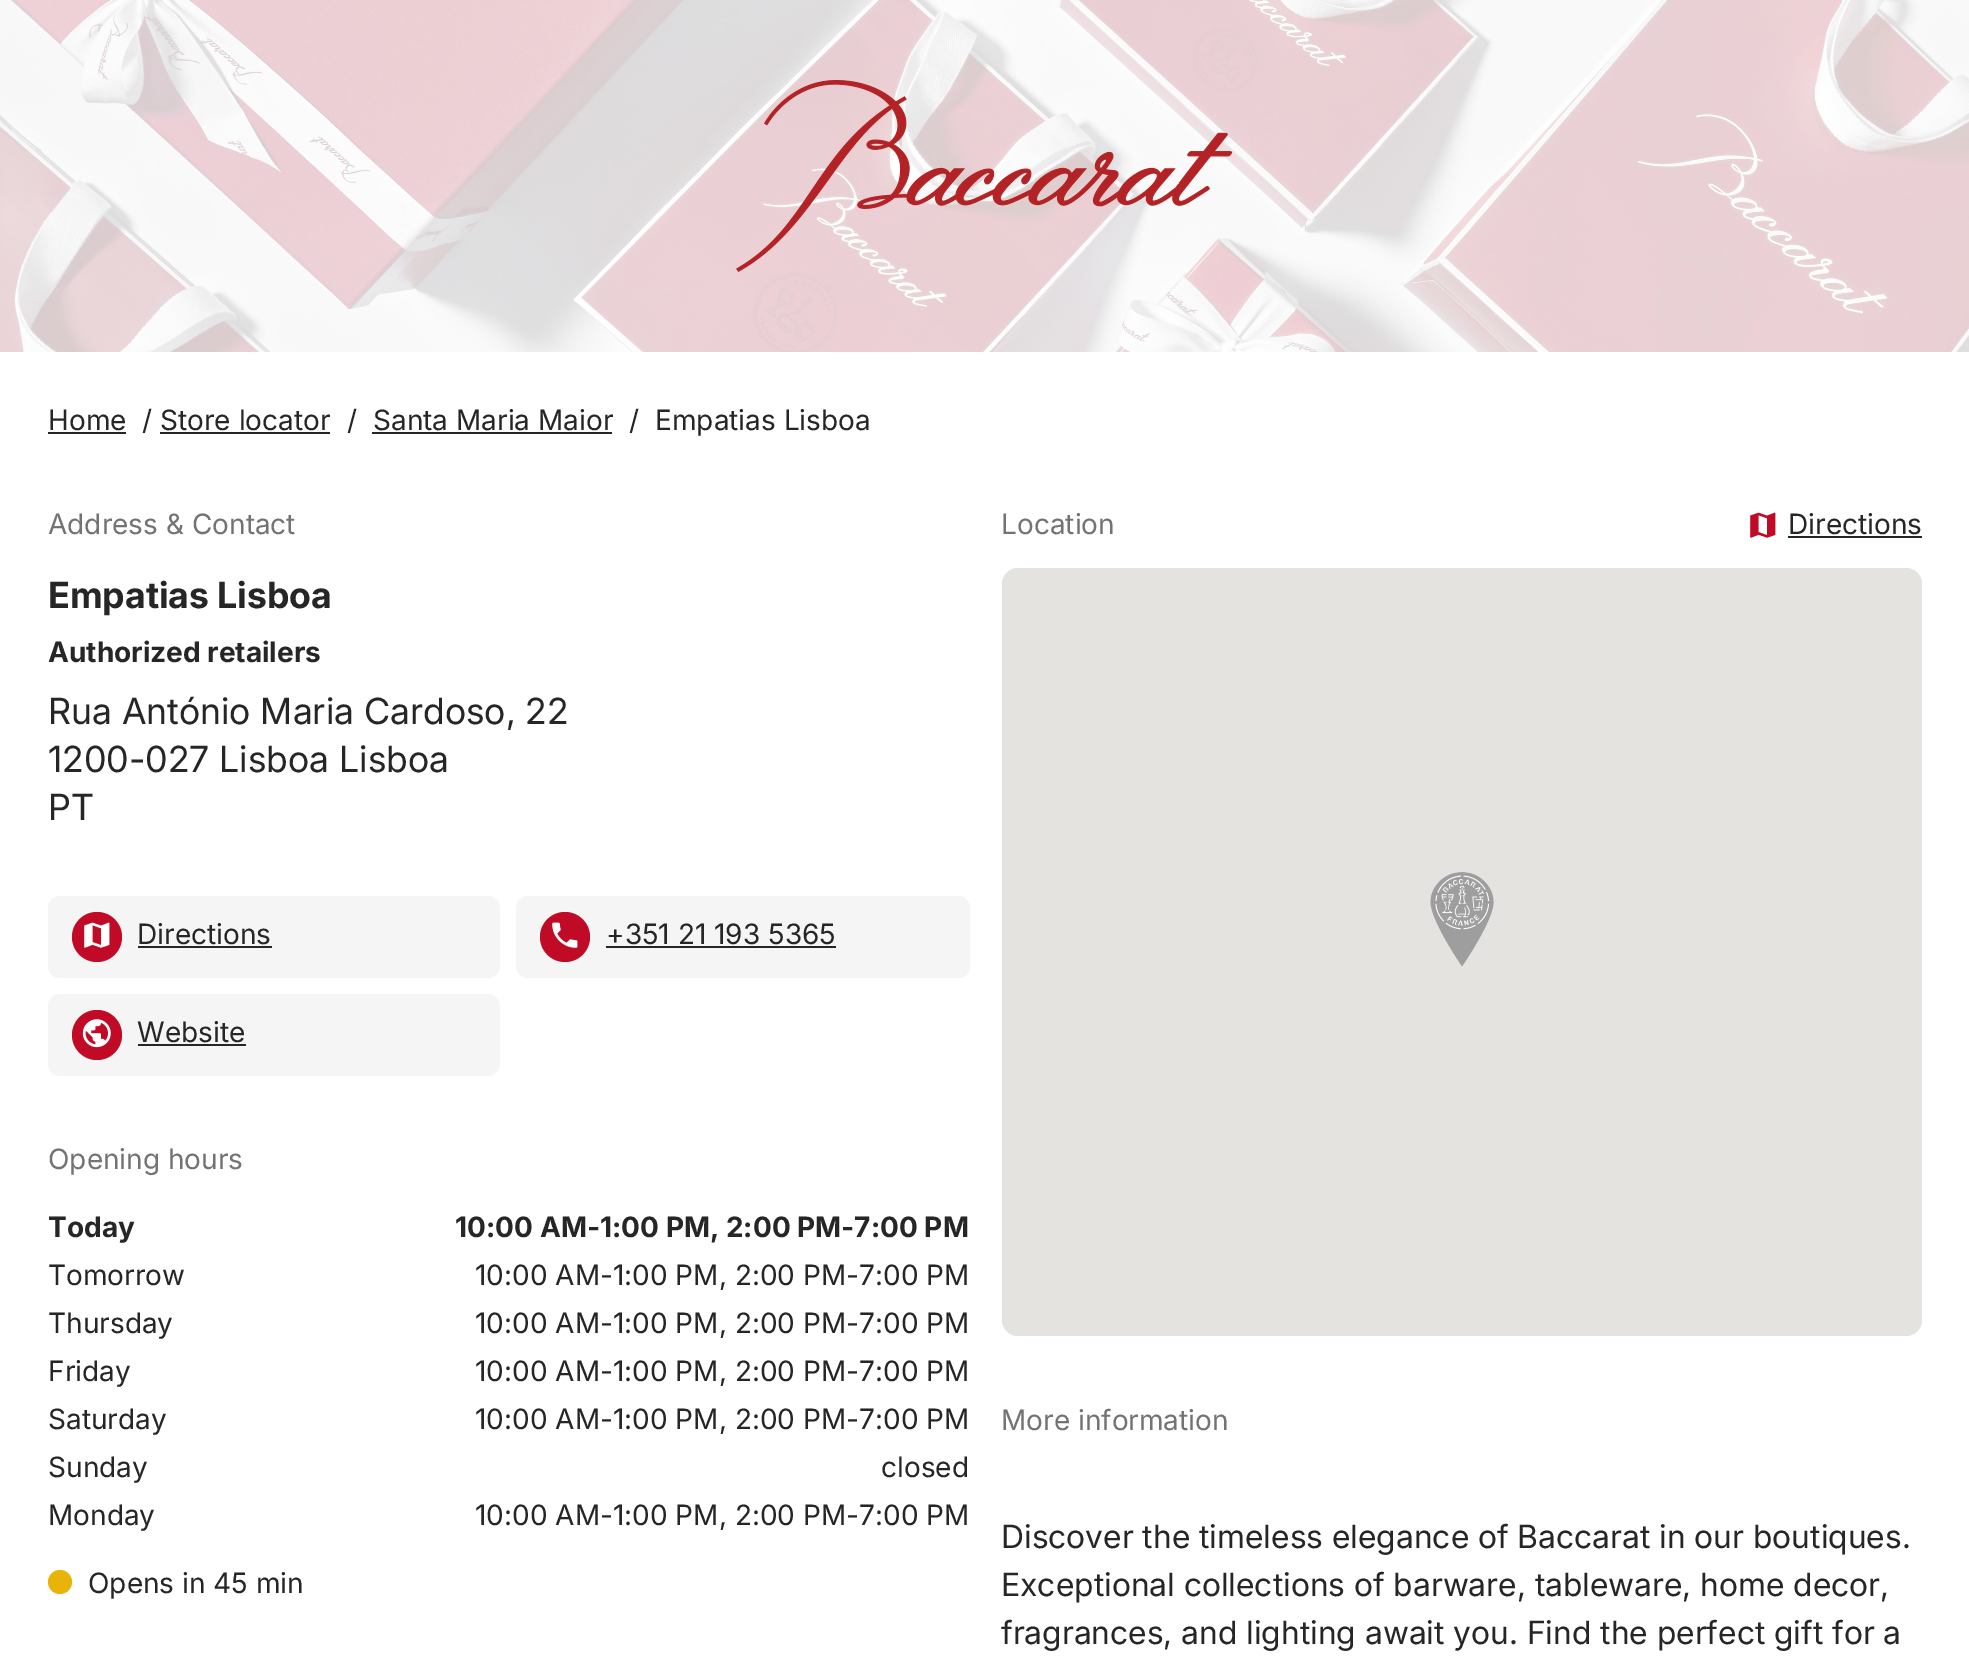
%!PS-Adobe-3.0
%%BoundingBox: 0 0 1969 1665
%%LanguageLevel: 3
%%Pages: 1
%%EndComments
%%BeginProlog
/setink { 3 { 255 div 3 1 roll } repeat setrgbcolor } def
/usefont { [ exch dup neg 0 0 3 -1 roll 0 0 ] selectfont } def
/drawtext { setink usefont moveto show } def
/fillbox { setink rectfill } def
/disc { newpath 0 360 arc closepath } def
/rrect { 5 dict begin { /r /h /w /y /x } { exch def } forall
  x r add y moveto x w add y 2 copy h add r arct x w add y h add x 1 index r arct
  x y h add x y r arct x y 2 copy exch w add exch r arct closepath end } def
/drawimage { 5 dict begin { /h /w /y /x /name } { exch def } forall
  gsave x y translate w h scale
  w h 8 [w 0 0 h 0 0] name (r) file false 3 colorimage grestore end } def
%%EndProlog
%%BeginSetup
<< /PageSize [1969 1665] >> setpagedevice
%%EndSetup
%%Page: 1 1
0 1665 translate 1 -1 scale
4 setmiterlimit
0 0 1969 1665 255 255 255 fillbox
(assets/img1.rgb) 0 0 1969 352 drawimage
(assets/img2.rgb) 736 80 497 192 drawimage
(Home) 48 430 /Inter-Regular 28 38 38 38 drawtext
48 432 78 2 38 38 38 fillbox
(/ Store locator) 142 430 /Inter-Regular 28 38 38 38 drawtext
(/) 347 430 /Inter-Regular 28 38 38 38 drawtext
(Santa Maria Maior) 373 430 /Inter-Regular 28 38 38 38 drawtext
372 432 240 2 38 38 38 fillbox
(/) 629 430 /Inter-Regular 28 38 38 38 drawtext
(Empatias Lisboa) 655 430 /Inter-Regular 28 38 38 38 drawtext
160 432 170 2 38 38 38 fillbox
(Address & Contact) 48 534 /Inter-Regular 28 115 115 115 drawtext
(Empatias Lisboa) 48 608 /Inter-Bold 36 38 38 38 drawtext
(Authorized retailers) 48 662 /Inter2-Bold 28 38 38 38 drawtext
(Rua António Maria Cardoso, 22) 48 724 /Inter2-Regular 36 38 38 38 drawtext
(1200-027 Lisboa Lisboa) 48 772 /Inter2-Regular 36 38 38 38 drawtext
(PT) 48 820 /Inter2-Regular 36 38 38 38 drawtext
245 245 245 setink
48 896 452 82 12 rrect fill
193 10 37 setink
97 937 25 disc fill
(assets/img3.rgb) 84 922 26 26 drawimage
(Directions) 137 944 /Inter-Regular 28 38 38 38 drawtext
138 946 134 2 38 38 38 fillbox
245 245 245 setink
516 896 454 82 12 rrect fill
193 10 37 setink
565 937 25 disc fill
(assets/img4.rgb) 552 922 26 26 drawimage
(+351 21 193 5365) 606 944 /Inter-Regular 28 38 38 38 drawtext
606 946 230 2 38 38 38 fillbox
245 245 245 setink
48 994 452 82 12 rrect fill
193 10 37 setink
97 1035 25 disc fill
(assets/img5.rgb) 82 1019 29 29 drawimage
(Website) 137 1042 /Inter-Regular 28 38 38 38 drawtext
138 1044 108 2 38 38 38 fillbox
(Opening hours) 48 1169 /Inter-Regular 28 115 115 115 drawtext
(Today) 48 1237 /Inter2-Bold 28 38 38 38 drawtext
(10:00 AM-1:00 PM, 2:00 PM-7:00 PM) 455 1237 /Inter2-Bold 28 38 38 38 drawtext
(Tomorrow) 48 1285 /Inter-Regular 28 38 38 38 drawtext
(10:00 AM-1:00 PM, 2:00 PM-7:00 PM) 475 1285 /Inter-Regular 28 38 38 38 drawtext
(Thursday) 48 1333 /Inter-Regular 28 38 38 38 drawtext
(10:00 AM-1:00 PM, 2:00 PM-7:00 PM) 475 1333 /Inter-Regular 28 38 38 38 drawtext
(Friday) 48 1381 /Inter-Regular 28 38 38 38 drawtext
(10:00 AM-1:00 PM, 2:00 PM-7:00 PM) 475 1381 /Inter-Regular 28 38 38 38 drawtext
(Saturday) 48 1429 /Inter-Regular 28 38 38 38 drawtext
(10:00 AM-1:00 PM, 2:00 PM-7:00 PM) 475 1429 /Inter-Regular 28 38 38 38 drawtext
(Sunday) 48 1477 /Inter-Regular 28 38 38 38 drawtext
(closed) 881 1477 /Inter-Regular 28 38 38 38 drawtext
(Monday) 48 1525 /Inter-Regular 28 38 38 38 drawtext
(10:00 AM-1:00 PM, 2:00 PM-7:00 PM) 475 1525 /Inter-Regular 28 38 38 38 drawtext
234 179 8 setink
60 1582 12 disc fill
(Opens in 45 min) 88 1593 /Inter-Regular 28 38 38 38 drawtext
(Location) 1001 534 /Inter-Regular 28 115 115 115 drawtext
(assets/img6.rgb) 1750 512 26 26 drawimage
(Directions) 1788 534 /Inter-Regular 28 38 38 38 drawtext
1788 536 134 2 38 38 38 fillbox
229 227 223 setink
1002 568 920 768 16 rrect fill
(assets/img7.rgb) 1430 872 64 95 drawimage
(More information) 1001 1430 /Inter-Regular 28 115 115 115 drawtext
(Discover the timeless elegance of Baccarat in our boutiques.) 1001 1548 /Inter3-Regular 32 38 38 38 drawtext
(Exceptional collections of barware, tableware, home decor,) 1001 1596 /Inter3-Regular 32 38 38 38 drawtext
(fragrances, and lighting await you. Find the perfect gift for a) 1001 1644 /Inter3-Regular 32 38 38 38 drawtext
showpage
%%EOF
